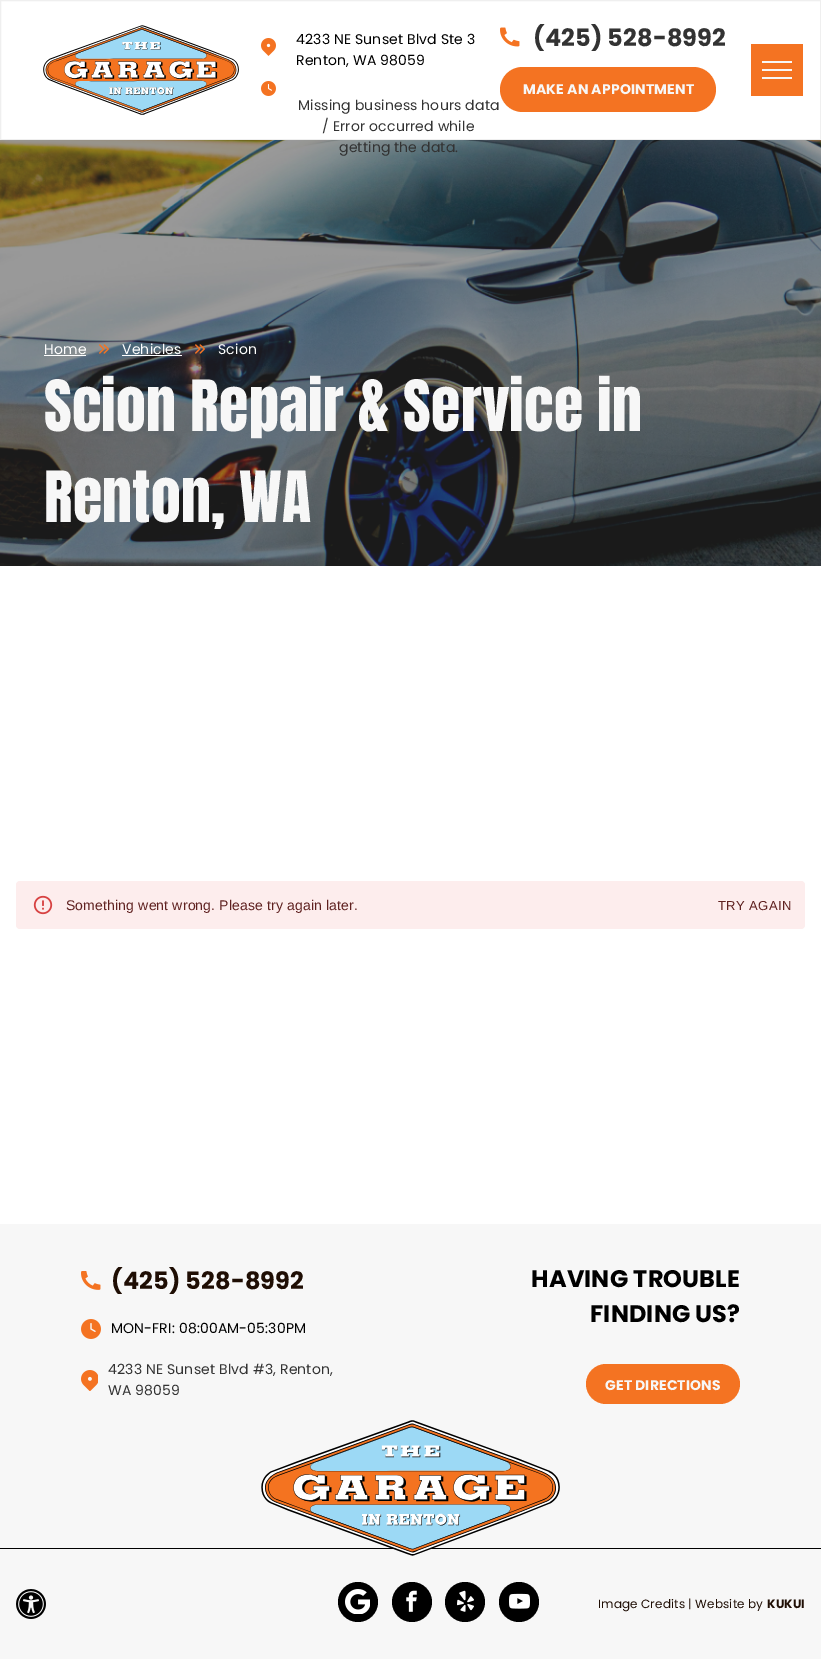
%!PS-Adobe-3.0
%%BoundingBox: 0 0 821 1663
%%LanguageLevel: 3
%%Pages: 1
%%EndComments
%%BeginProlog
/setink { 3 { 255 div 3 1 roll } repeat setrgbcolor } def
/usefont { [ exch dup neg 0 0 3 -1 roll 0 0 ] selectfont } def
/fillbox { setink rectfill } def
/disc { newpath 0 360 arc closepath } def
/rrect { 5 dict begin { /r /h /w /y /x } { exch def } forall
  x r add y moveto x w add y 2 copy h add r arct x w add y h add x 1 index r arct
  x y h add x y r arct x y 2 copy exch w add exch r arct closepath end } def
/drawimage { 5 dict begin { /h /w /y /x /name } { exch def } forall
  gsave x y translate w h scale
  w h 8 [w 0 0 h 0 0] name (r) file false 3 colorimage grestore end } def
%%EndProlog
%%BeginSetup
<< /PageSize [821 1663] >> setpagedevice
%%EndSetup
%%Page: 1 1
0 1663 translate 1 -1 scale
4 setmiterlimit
0 0 821 1663 255 255 255 fillbox
239 239 239 setink
0.5 0.5 820 139 rectstroke
(assets/img1.rgb) 43 25 196 90 drawimage
(assets/img2.rgb) 261 38 15 18 drawimage
/Poppins-Regular 14 usefont
0 0 0 setink
296 44 moveto 0.15 0 (4233 NE Sunset Blvd Ste 3) ashow
296 65 moveto 0.15 0 (Renton, WA 98059) ashow
(assets/img3.rgb) 261 81 15 15 drawimage
51 51 51 setink
298 110 moveto 0.15 0 (Missing business hours data) ashow
322 131 moveto 0.15 0 (/ Error occurred while) ashow
(assets/img5.rgb) 0 140 821 426 drawimage
339 152 moveto 0.15 0 (getting the data.) ashow
(assets/img4.rgb) 500 27 20 20 drawimage
/Poppins-Bold 24 usefont
533 46 moveto 0.15 0 (\(425\) 528-8992) ashow
244 115 34 setink
500 67 216 45 22.5 rrect fill
/Poppins-Bold 14 usefont
247 247 247 setink
523 94 moveto 0.15 0 (MAKE AN APPOINTMENT) ashow
751 44 52 52 244 115 34 fillbox
762 61 30 2 247 247 247 fillbox
762 69 30 2 247 247 247 fillbox
762 77 30 2 247 247 247 fillbox
/Poppins-Regular 14 usefont
255 255 255 setink
44 354 moveto 0.15 0 (Home) ashow
44 355 42 1 255 255 255 fillbox
(assets/img6.rgb) 99 344 10 10 drawimage
122 354 moveto 0.15 0 (Vehicles) ashow
122 355 60 1 255 255 255 fillbox
(assets/img7.rgb) 195 344 10 10 drawimage
218 354 moveto 0.15 0 (Scion) ashow
/Anton-Regular 60 usefont
247 247 247 setink
44 431 moveto 0.15 0 (Scion Repair & Service in) ashow
44 522 moveto 0.15 0 (Renton, WA) ashow
253 237 237 setink
16 881 789 48 4 rrect fill
(assets/img8.rgb) 33 895 20 20 drawimage
/LiberationSans-Regular 14 usefont
95 33 32 setink
66 910 moveto 0.15 0 (Something went wrong. Please try again later.) ashow
/LiberationSans-Regular 13 usefont
718 910 moveto 0.4 0 (TRY AGAIN) ashow
0 1224 821 324 247 247 247 fillbox
0 1548 821 1 0 0 0 fillbox
(assets/img9.rgb) 81 1271 20 19 drawimage
/Poppins-Bold 24 usefont
31 14 4 setink
111 1289 moveto 0.15 0 (\(425\) 528-8992) ashow
(assets/img10.rgb) 81 1319 20 20 drawimage
/Poppins-Regular 14 usefont
0 0 0 setink
111 1333 moveto 0.15 0 (MON-FRI: 08:00AM-05:30PM) ashow
(assets/img11.rgb) 81 1370 17 21 drawimage
51 51 51 setink
108 1374 moveto 0.15 0 (4233 NE Sunset Blvd #3, Renton,) ashow
108 1395 moveto 0.15 0 (WA 98059) ashow
/Poppins-Bold 24 usefont
0 0 0 setink
531 1287 moveto 0.15 0 (HAVING TROUBLE) ashow
590 1322 moveto 0.15 0 (FINDING US?) ashow
244 115 34 setink
586 1364 154 40 20 rrect fill
/Poppins-Bold 14 usefont
247 247 247 setink
605 1390 moveto 0.15 0 (GET DIRECTIONS) ashow
0 1549 821 110 247 247 247 fillbox
(assets/img12.rgb) 261 1420 299 136 drawimage
(assets/img13.rgb) 16 1589 30 30 drawimage
0 0 0 setink
358 1602 20 disc fill
(assets/img14.rgb) 345 1589 25 25 drawimage
412 1602 20 disc fill
(assets/img15.rgb) 406 1590 11 22 drawimage
465 1602 20 disc fill
(assets/img16.rgb) 457 1590 17 22 drawimage
519 1602 20 disc fill
(assets/img17.rgb) 509 1593 21 16 drawimage
/Poppins-Regular 12 usefont
31 14 4 setink
598 1608 moveto 0.15 0 (Image Credits | Website by) ashow
/Poppins-Bold 12 usefont
767 1608 moveto 0.15 0 (KUKUI) ashow
showpage
%%EOF
